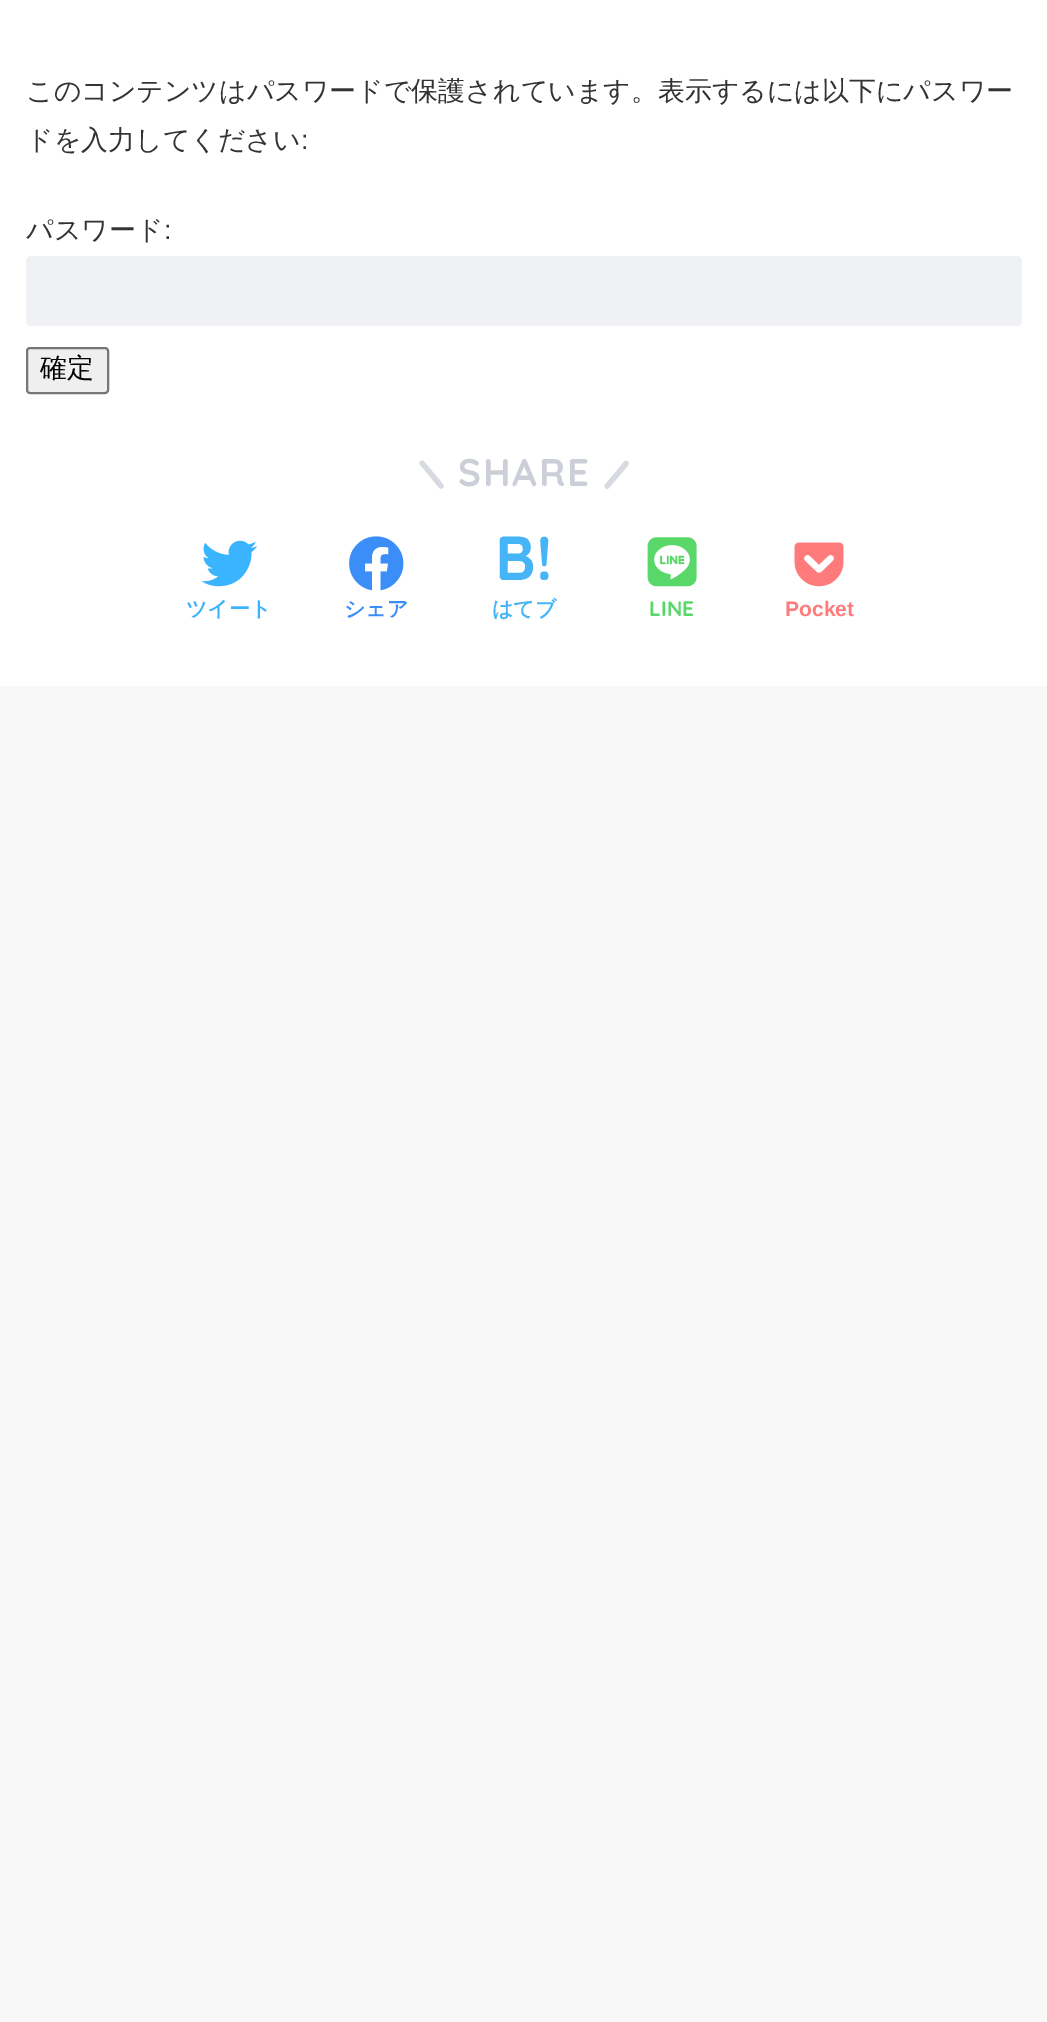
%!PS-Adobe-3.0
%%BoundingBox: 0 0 1047 2022
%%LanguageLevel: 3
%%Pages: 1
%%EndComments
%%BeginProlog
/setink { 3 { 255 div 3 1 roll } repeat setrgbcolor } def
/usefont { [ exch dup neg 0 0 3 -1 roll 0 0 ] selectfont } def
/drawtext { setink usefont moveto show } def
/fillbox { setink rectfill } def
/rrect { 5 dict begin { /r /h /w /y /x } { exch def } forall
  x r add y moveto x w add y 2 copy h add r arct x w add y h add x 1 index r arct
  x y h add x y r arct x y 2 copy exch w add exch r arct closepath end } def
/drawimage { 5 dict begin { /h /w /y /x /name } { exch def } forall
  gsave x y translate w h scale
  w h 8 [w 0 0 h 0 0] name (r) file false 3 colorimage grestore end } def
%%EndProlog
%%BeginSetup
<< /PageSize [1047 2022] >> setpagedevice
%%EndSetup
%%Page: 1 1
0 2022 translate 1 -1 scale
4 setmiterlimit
0 0 1047 2022 248 248 248 fillbox
0 0 1047 686 255 255 255 fillbox
(このコンテンツはパスワードで保護されています。表示するには以下にパスワー) 26 100 /WenQuanYiZenHei-Medium 26.95 51 51 51 drawtext
(ドを入力してください) 26 149 /WenQuanYiZenHei-Medium 26.95 51 51 51 drawtext
(:) 301 149 /LiberationSans-Regular 26.95 51 51 51 drawtext
(パスワード) 26 239 /WenQuanYiZenHei-Medium 26.95 51 51 51 drawtext
(:) 164 239 /LiberationSans-Regular 26.95 51 51 51 drawtext
239 241 245 setink
26 256 996 70 5 rrect fill
239 239 239 setink
27 348 81 45 3 rrect gsave fill grestore
118 118 118 setink
2 setlinewidth
stroke
(確定) 40 377 /WenQuanYiZenHei-Medium 26.95 0 0 0 drawtext
216 218 225 setink
424 461.5 moveto 440 480.5 lineto 441 482 445.5 486 443 488 curveto 440 490.5 437 485.5 436 484 curveto 419.5 464 lineto 418.5 461.5 422.5 459.5 424 461.5 curveto closepath fill
/Quicksand-Bold 38.5 usefont
204 207 215 setink
458 486 moveto 1.75 0 (SHARE) ashow
216 218 225 setink
605 484.5 moveto 621 465.5 lineto 622 464 625 459 628 461.5 curveto 630.5 464 626 467.5 625 469 curveto 608.5 488.5 lineto 606 490 603.5 486.5 605 484.5 curveto closepath fill
(assets/img1.rgb) 201 540 57 47 drawimage
(ツイート) 186 616 /WenQuanYiZenHei-Bold 21 58 180 255 drawtext
(assets/img2.rgb) 349 536 55 55 drawimage
(シェア) 344 616 /WenQuanYiZenHei-Bold 21 59 141 247 drawtext
(B!) 495 580 /Quicksand-Bold 62 69 181 247 drawtext
(はてブ) 492 616 /WenQuanYiZenHei-Bold 21 69 181 247 drawtext
(assets/img3.rgb) 647 537 50 50 drawimage
(LINE) 649 616 /Quicksand-Bold 21 89 216 105 drawtext
(assets/img4.rgb) 794 542 50 45 drawimage
(Pocket) 785 616 /LiberationSans-Bold 21 255 123 123 drawtext
showpage
%%EOF
